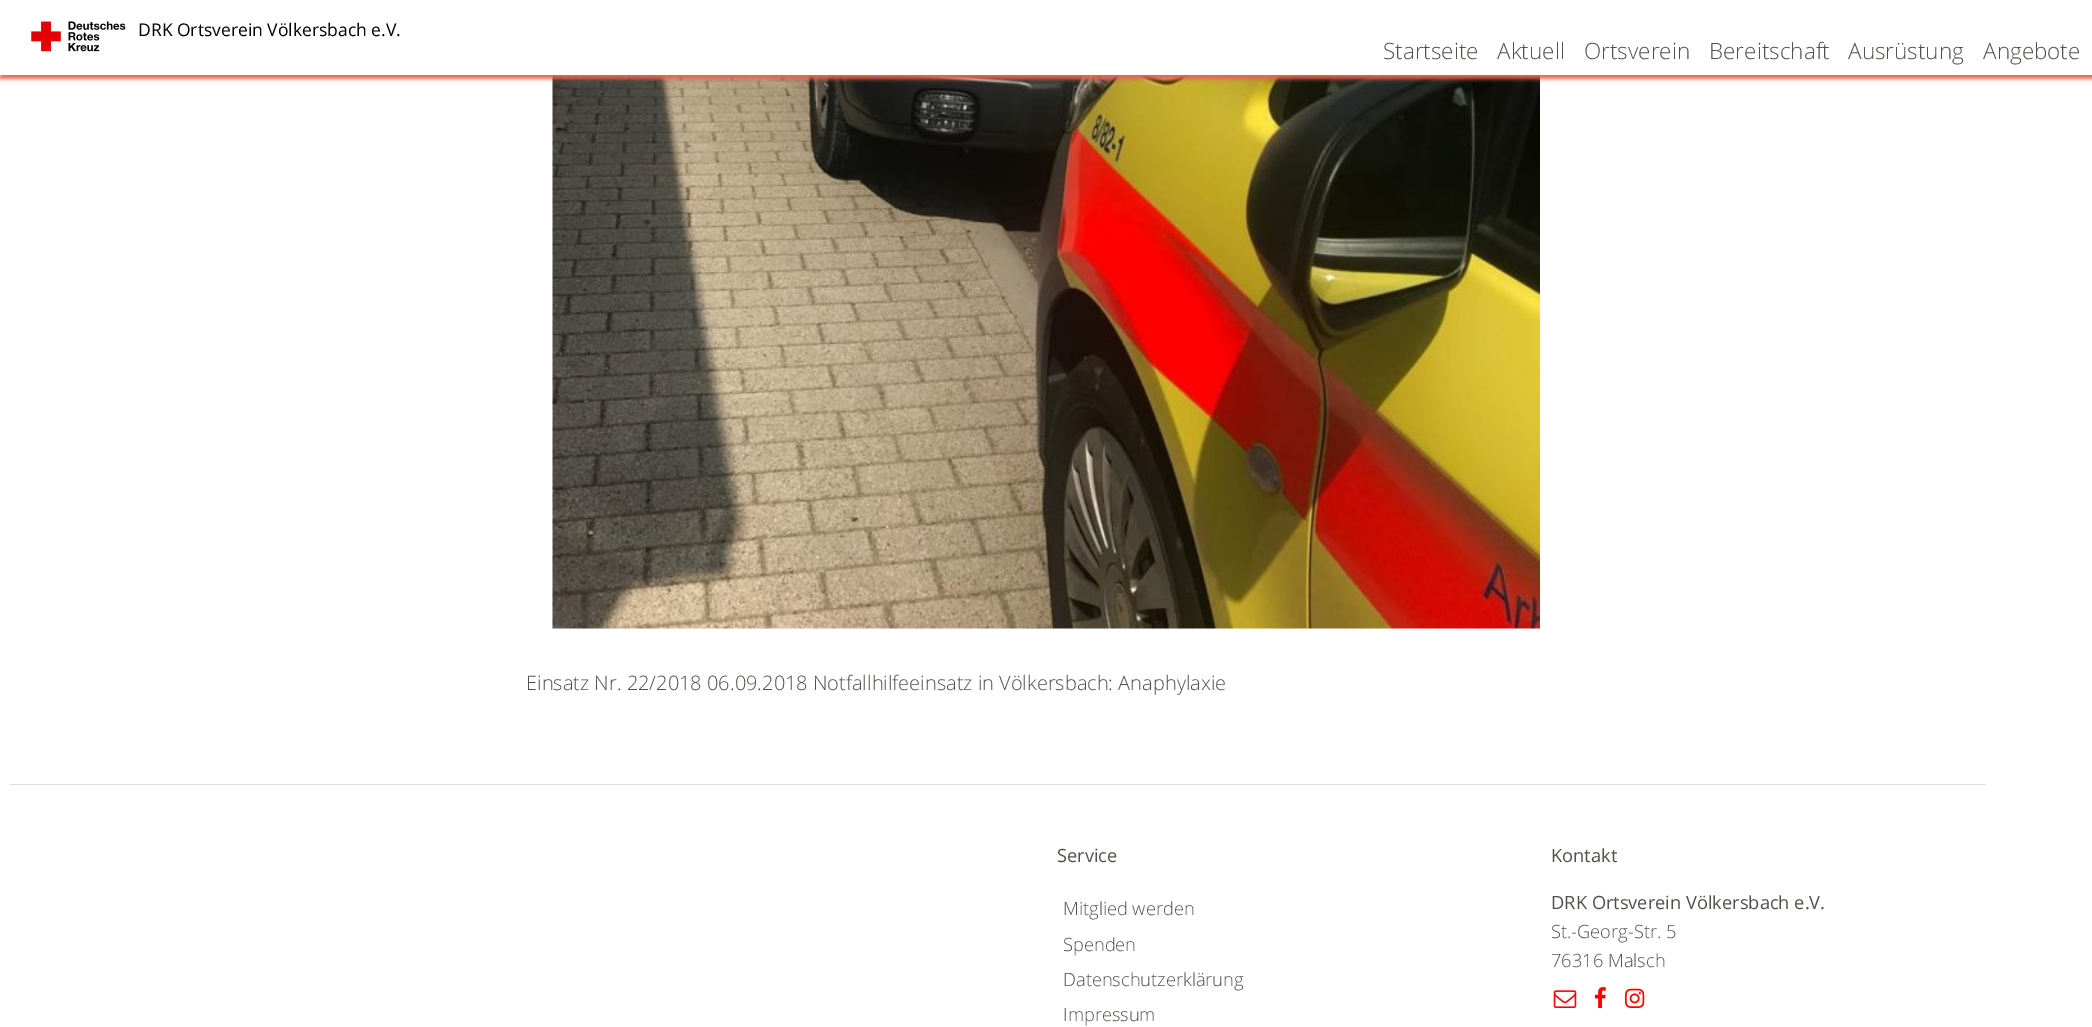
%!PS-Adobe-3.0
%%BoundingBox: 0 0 2092 1027
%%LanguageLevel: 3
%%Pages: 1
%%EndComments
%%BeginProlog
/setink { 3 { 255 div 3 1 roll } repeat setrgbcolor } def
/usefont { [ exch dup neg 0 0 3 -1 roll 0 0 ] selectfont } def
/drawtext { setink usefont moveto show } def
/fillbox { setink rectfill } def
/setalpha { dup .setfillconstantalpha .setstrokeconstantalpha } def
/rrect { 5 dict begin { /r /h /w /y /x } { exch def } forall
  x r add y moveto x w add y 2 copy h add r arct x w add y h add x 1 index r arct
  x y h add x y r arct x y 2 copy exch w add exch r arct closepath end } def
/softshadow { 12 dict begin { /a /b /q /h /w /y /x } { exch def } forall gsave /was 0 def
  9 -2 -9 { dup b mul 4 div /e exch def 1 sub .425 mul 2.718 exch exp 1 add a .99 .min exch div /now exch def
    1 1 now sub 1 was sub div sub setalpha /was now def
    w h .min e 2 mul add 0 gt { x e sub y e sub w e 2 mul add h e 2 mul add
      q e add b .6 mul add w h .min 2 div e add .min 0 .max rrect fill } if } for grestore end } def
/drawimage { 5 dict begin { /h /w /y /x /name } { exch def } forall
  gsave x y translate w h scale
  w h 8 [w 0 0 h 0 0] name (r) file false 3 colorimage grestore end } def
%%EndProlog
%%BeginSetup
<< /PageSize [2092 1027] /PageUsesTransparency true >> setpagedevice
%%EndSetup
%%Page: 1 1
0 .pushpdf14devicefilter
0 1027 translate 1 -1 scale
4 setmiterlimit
0 0 2092 1027 255 255 255 fillbox
(assets/img2.rgb) 552 75 988 554 drawimage
228 100 80 setink
0 4 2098 75 0 2 1 softshadow
0 0 2092 75 255 255 255 fillbox
(assets/img1.rgb) 31 21 95 31 drawimage
(DRK Ortsverein Völkersbach e.V.) 138 36 /OpenSans-Regular 17.5 0 0 0 drawtext
(Startseite) 1383 59 /OpenSans-Light 22.5 85 79 74 drawtext
(Aktuell) 1497 59 /OpenSans-Light 22.5 85 79 74 drawtext
(Ortsverein) 1584 59 /OpenSans-Light 22.5 85 79 74 drawtext
(Bereitschaft) 1709 59 /OpenSans-Light 22.5 85 79 74 drawtext
(Ausrüstung) 1848 59 /OpenSans-Light 22.5 85 79 74 drawtext
(Angebote) 1983 59 /OpenSans-Light 22.5 85 79 74 drawtext
(Einsatz Nr. 22/2018 06.09.2018 Notfallhilfeeinsatz in Völkersbach: Anaphylaxie) 526 690 /OpenSans-Light 20 85 79 74 drawtext
10 784 1976 1 224 221 214 fillbox
(Service) 1057 862 /OpenSans-Regular 18.25 85 79 74 drawtext
(Mitglied werden) 1063 915 /OpenSans-Light 18.25 85 79 74 drawtext
(Spenden) 1063 951 /OpenSans-Light 18.25 85 79 74 drawtext
(Datenschutzerklärung) 1063 986 /OpenSans-Light 18.25 85 79 74 drawtext
(Impressum) 1063 1021 /OpenSans-Light 18.25 85 79 74 drawtext
(Kontakt) 1551 862 /OpenSans-Regular 18.25 85 79 74 drawtext
(DRK Ortsverein Völkersbach e.V.) 1551 909 /OpenSans-Regular 18.25 85 79 74 drawtext
(St.-Georg-Str. 5) 1551 938 /OpenSans-Light 18.25 85 79 74 drawtext
(76316 Malsch) 1551 967 /OpenSans-Light 18.25 85 79 74 drawtext
(assets/img3.rgb) 1553 990 24 18 drawimage
(assets/img4.rgb) 1594 987 12 21 drawimage
(assets/img5.rgb) 1625 988 20 20 drawimage
.poppdf14devicefilter showpage
%%EOF
